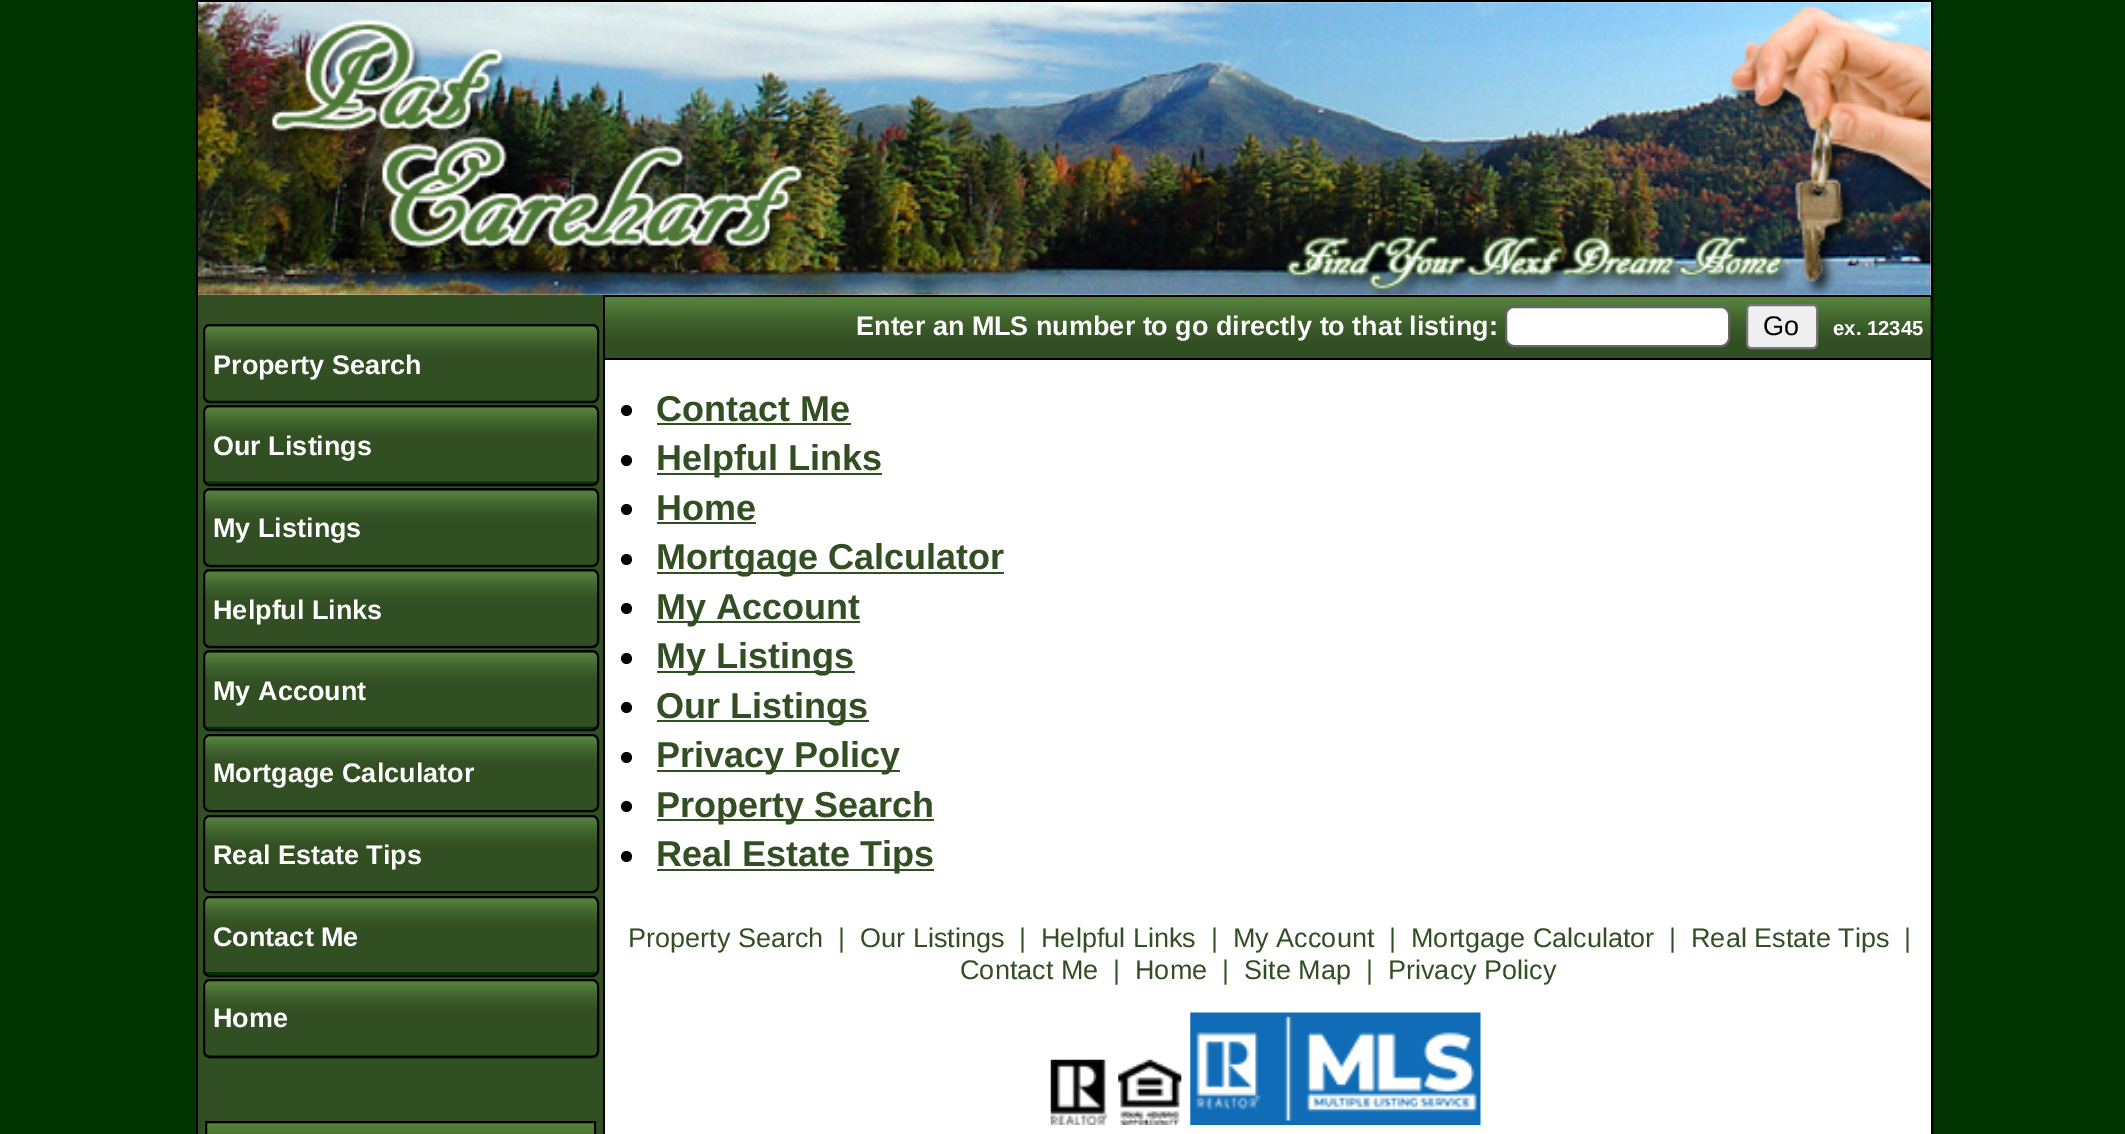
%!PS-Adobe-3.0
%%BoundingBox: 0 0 2125 1134
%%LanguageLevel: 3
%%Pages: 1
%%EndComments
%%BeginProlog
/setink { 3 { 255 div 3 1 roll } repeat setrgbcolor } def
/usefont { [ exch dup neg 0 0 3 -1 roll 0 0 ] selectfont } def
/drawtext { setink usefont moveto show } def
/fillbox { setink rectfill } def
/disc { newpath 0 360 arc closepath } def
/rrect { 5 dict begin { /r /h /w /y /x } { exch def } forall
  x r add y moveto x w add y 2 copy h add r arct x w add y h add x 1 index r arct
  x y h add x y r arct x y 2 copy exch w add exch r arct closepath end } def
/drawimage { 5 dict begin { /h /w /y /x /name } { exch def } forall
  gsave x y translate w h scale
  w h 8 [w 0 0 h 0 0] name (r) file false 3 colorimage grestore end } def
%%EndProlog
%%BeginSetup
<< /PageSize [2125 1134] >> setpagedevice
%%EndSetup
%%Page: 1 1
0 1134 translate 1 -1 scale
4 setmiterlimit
0 0 2125 1134 0 51 0 fillbox
0 0 0 setink
2 setlinewidth
197 1 1735 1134 rectstroke
198 2 1733 293 255 255 255 fillbox
(assets/img1.rgb) 1226 69 705 226 drawimage
(assets/img2.rgb) 198 2 1733 293 drawimage
198 295 405 839 50 78 35 fillbox
603 295 1328 2 0 0 0 fillbox
603 358 1328 2 0 0 0 fillbox
603 295 2 839 0 0 0 fillbox
0 51 0 setink
203 324 396 79 7 rrect fill
(assets/img3.rgb) 202 326 397 75 drawimage
0 0 0 setink
204 325 394 77 6 rrect stroke
(Property Search) 213 374 /LiberationSans-Bold 27 255 255 255 drawtext
0 51 0 setink
203 405 396 81 7 rrect fill
(assets/img4.rgb) 202 407 397 75 drawimage
0 0 0 setink
204 406 394 79 6 rrect stroke
(Our Listings) 213 455 /LiberationSans-Bold 27 255 255 255 drawtext
0 51 0 setink
203 488 396 79 7 rrect fill
(assets/img5.rgb) 202 490 397 75 drawimage
0 0 0 setink
204 489 394 77 6 rrect stroke
(My Listings) 213 537 /LiberationSans-Bold 27 255 255 255 drawtext
0 51 0 setink
203 569 396 79 7 rrect fill
(assets/img5.rgb) 202 571 397 75 drawimage
0 0 0 setink
204 570 394 77 6 rrect stroke
(Helpful Links) 213 619 /LiberationSans-Bold 27 255 255 255 drawtext
0 51 0 setink
203 650 396 81 7 rrect fill
(assets/img6.rgb) 202 652 397 75 drawimage
0 0 0 setink
204 651 394 79 6 rrect stroke
(My Account) 213 700 /LiberationSans-Bold 27 255 255 255 drawtext
(assets/img7.rgb) 202 735 397 75 drawimage
0 0 0 setink
204 735 394 76 6 rrect stroke
(Mortgage Calculator) 213 782 /LiberationSans-Bold 27 255 255 255 drawtext
(assets/img7.rgb) 202 816 397 75 drawimage
0 0 0 setink
204 816 394 76 6 rrect stroke
(Real Estate Tips) 213 864 /LiberationSans-Bold 27 255 255 255 drawtext
0 51 0 setink
203 896 396 81 7 rrect fill
(assets/img8.rgb) 202 897 397 75 drawimage
0 0 0 setink
204 897 394 79 6 rrect stroke
(Contact Me) 213 946 /LiberationSans-Bold 27 255 255 255 drawtext
0 51 0 setink
203 979 396 79 7 rrect fill
(assets/img9.rgb) 202 981 397 75 drawimage
0 0 0 setink
204 980 394 77 6 rrect stroke
(Home) 213 1027 /LiberationSans-Bold 27 255 255 255 drawtext
(assets/img10.rgb) 204 1122 393 12 drawimage
0 0 0 setink
206 1122 389 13 rectstroke
605 360 1326 774 255 255 255 fillbox
(assets/img11.rgb) 605 297 1326 61 drawimage
(Enter an MLS number to go directly to that listing:) 856 335 /LiberationSans-Bold 27 255 255 255 drawtext
1506 307 223 39 8 rrect gsave fill grestore
102 102 102 setink
stroke
239 239 239 setink
1747 305 70 43 4 rrect gsave fill grestore
118 118 118 setink
stroke
(Go) 1763 335 /LiberationSans-Regular 27 0 0 0 drawtext
(ex. 12345) 1833 335 /LiberationSans-Bold 20.25 255 255 255 drawtext
0 0 0 setink
626.5 410.5 5.5 disc fill
(Contact Me) 656 421 /LiberationSans-Bold 36 50 78 35 drawtext
657 423 194 2 50 78 35 fillbox
0 0 0 setink
626.5 460.5 5.5 disc fill
657 473 225 2 50 78 35 fillbox
(Helpful Links) 656 470 /LiberationSans-Bold 36 50 78 35 drawtext
0 0 0 setink
626.5 509.5 5.5 disc fill
(Home) 656 520 /LiberationSans-Bold 36 50 78 35 drawtext
657 522 99 2 50 78 35 fillbox
0 0 0 setink
626.5 559.5 5.5 disc fill
657 572 347 2 50 78 35 fillbox
(Mortgage Calculator) 656 569 /LiberationSans-Bold 36 50 78 35 drawtext
0 0 0 setink
626.5 608.5 5.5 disc fill
657 621 203 2 50 78 35 fillbox
(My Account) 656 619 /LiberationSans-Bold 36 50 78 35 drawtext
0 0 0 setink
626.5 658.5 5.5 disc fill
657 671 198 2 50 78 35 fillbox
(My Listings) 656 668 /LiberationSans-Bold 36 50 78 35 drawtext
0 0 0 setink
626.5 707.5 5.5 disc fill
657 720 212 2 50 78 35 fillbox
(Our Listings) 656 718 /LiberationSans-Bold 36 50 78 35 drawtext
0 0 0 setink
626.5 757.5 5.5 disc fill
657 770 243 2 50 78 35 fillbox
(Privacy Policy) 656 767 /LiberationSans-Bold 36 50 78 35 drawtext
0 0 0 setink
626.5 806.5 5.5 disc fill
657 819 277 2 50 78 35 fillbox
(Property Search) 656 817 /LiberationSans-Bold 36 50 78 35 drawtext
0 0 0 setink
626.5 856.5 5.5 disc fill
657 869 277 2 50 78 35 fillbox
(Real Estate Tips) 656 866 /LiberationSans-Bold 36 50 78 35 drawtext
(Property Search) 628 947 /LiberationSans-Regular 27 50 78 35 drawtext
(|) 838 947 /LiberationSans-Regular 27 50 78 35 drawtext
(Our Listings) 860 947 /LiberationSans-Regular 27 50 78 35 drawtext
(|) 1019 947 /LiberationSans-Regular 27 50 78 35 drawtext
(Helpful Links) 1041 947 /LiberationSans-Regular 27 50 78 35 drawtext
(|) 1211 947 /LiberationSans-Regular 27 50 78 35 drawtext
(My Account) 1233 947 /LiberationSans-Regular 27 50 78 35 drawtext
(|) 1389 947 /LiberationSans-Regular 27 50 78 35 drawtext
(Mortgage Calculator) 1411 947 /LiberationSans-Regular 27 50 78 35 drawtext
(|) 1669 947 /LiberationSans-Regular 27 50 78 35 drawtext
(Real Estate Tips) 1691 947 /LiberationSans-Regular 27 50 78 35 drawtext
(|) 1904 947 /LiberationSans-Regular 27 50 78 35 drawtext
(Contact Me) 960 979 /LiberationSans-Regular 27 50 78 35 drawtext
(|) 1113 979 /LiberationSans-Regular 27 50 78 35 drawtext
(Home) 1135 979 /LiberationSans-Regular 27 50 78 35 drawtext
(|) 1222 979 /LiberationSans-Regular 27 50 78 35 drawtext
(Site Map) 1244 979 /LiberationSans-Regular 27 50 78 35 drawtext
(|) 1366 979 /LiberationSans-Regular 27 50 78 35 drawtext
(Privacy Policy) 1388 979 /LiberationSans-Regular 27 50 78 35 drawtext
(assets/img12.rgb) 1050 1059 57 66 drawimage
(assets/img13.rgb) 1118 1059 64 66 drawimage
(assets/img14.rgb) 1190 1012 291 113 drawimage
showpage
%%EOF
